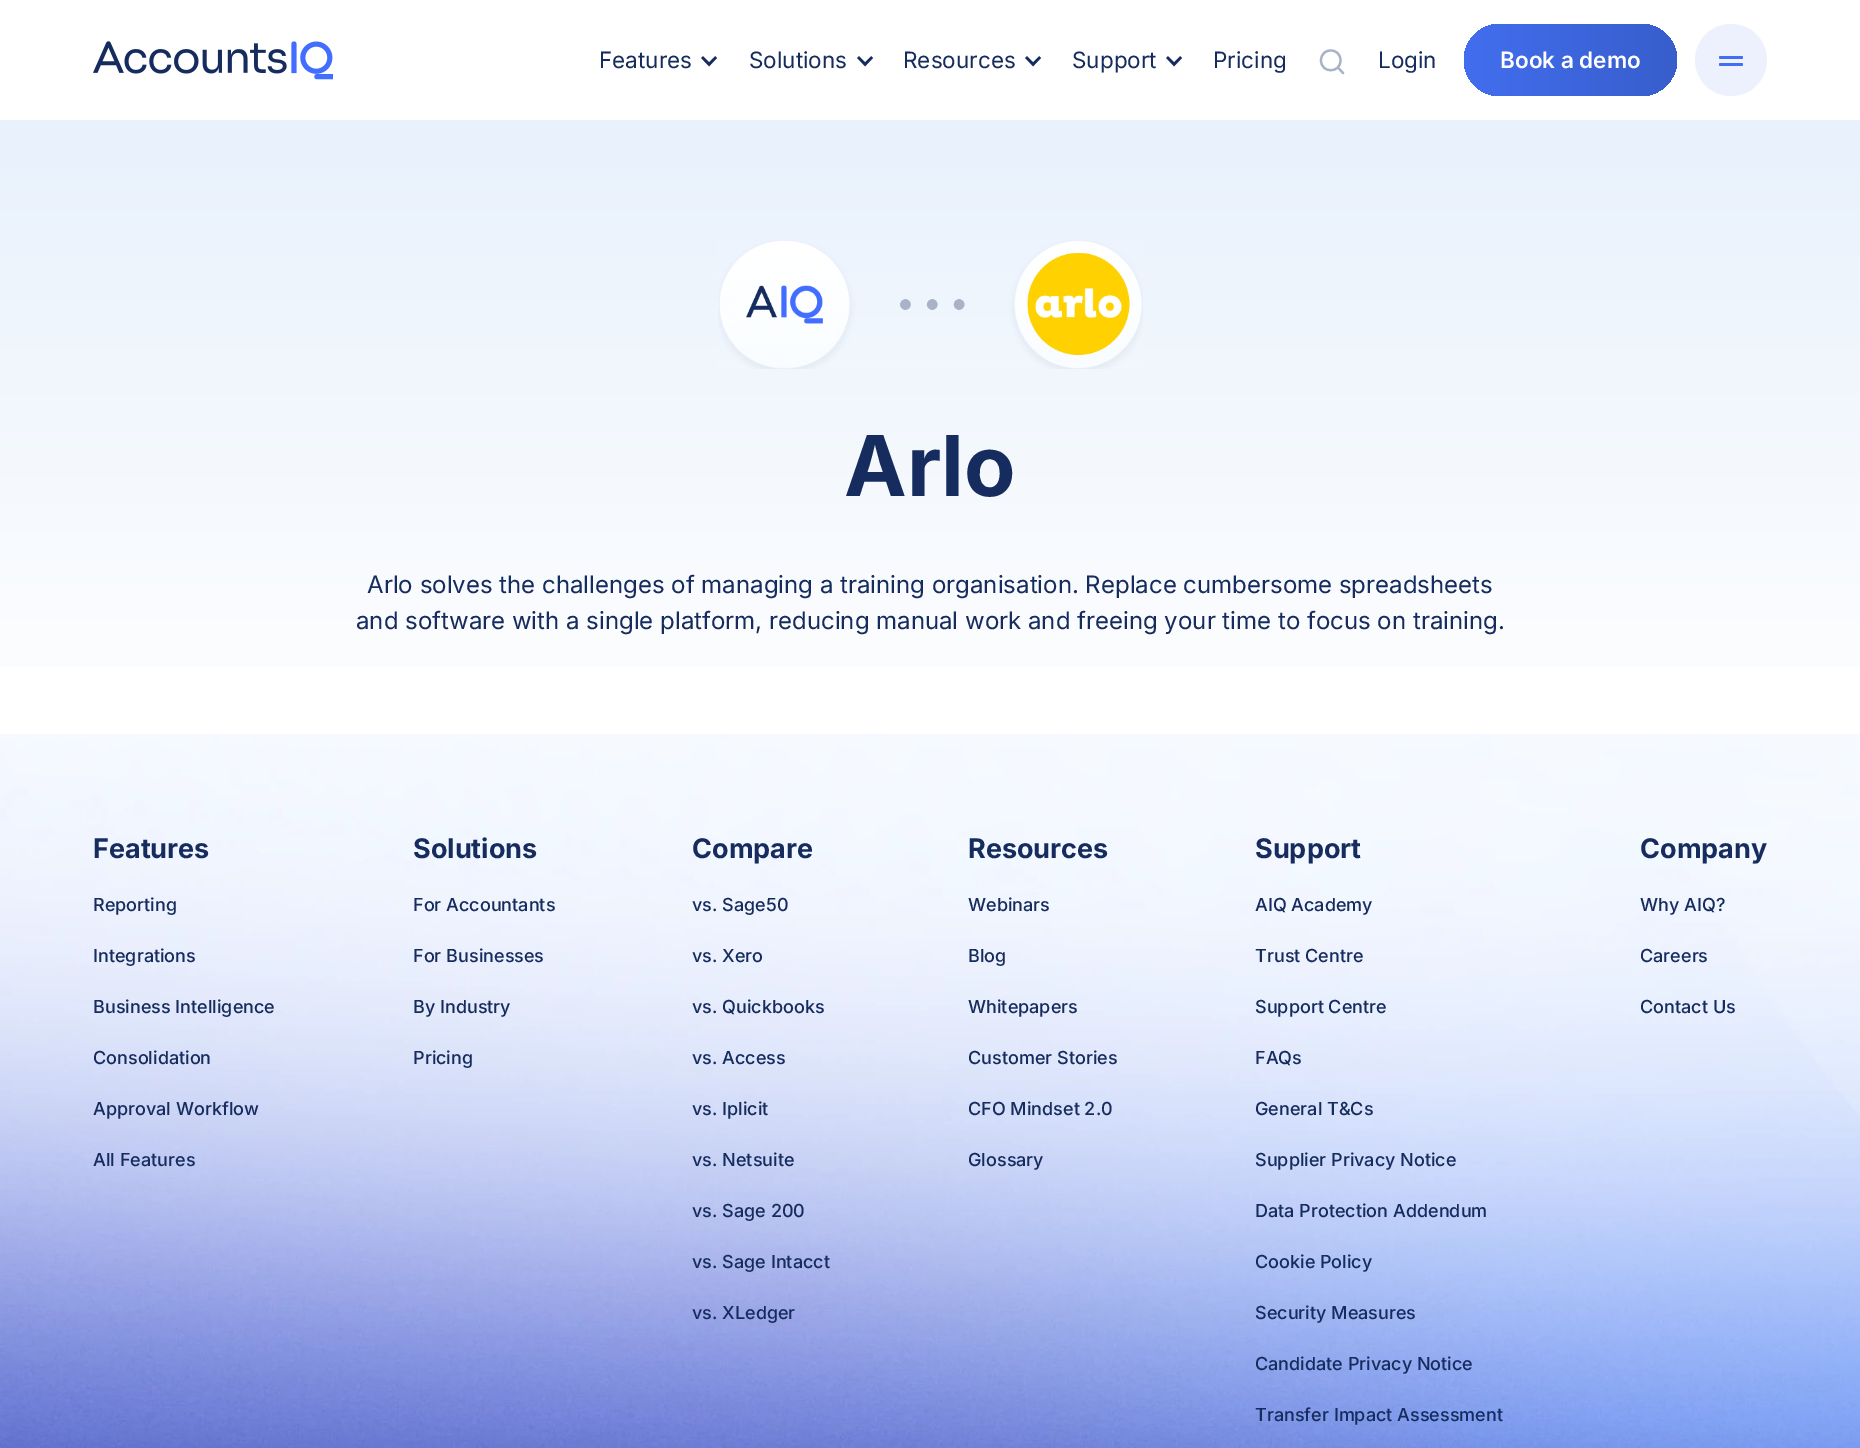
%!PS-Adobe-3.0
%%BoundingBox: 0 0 1860 1448
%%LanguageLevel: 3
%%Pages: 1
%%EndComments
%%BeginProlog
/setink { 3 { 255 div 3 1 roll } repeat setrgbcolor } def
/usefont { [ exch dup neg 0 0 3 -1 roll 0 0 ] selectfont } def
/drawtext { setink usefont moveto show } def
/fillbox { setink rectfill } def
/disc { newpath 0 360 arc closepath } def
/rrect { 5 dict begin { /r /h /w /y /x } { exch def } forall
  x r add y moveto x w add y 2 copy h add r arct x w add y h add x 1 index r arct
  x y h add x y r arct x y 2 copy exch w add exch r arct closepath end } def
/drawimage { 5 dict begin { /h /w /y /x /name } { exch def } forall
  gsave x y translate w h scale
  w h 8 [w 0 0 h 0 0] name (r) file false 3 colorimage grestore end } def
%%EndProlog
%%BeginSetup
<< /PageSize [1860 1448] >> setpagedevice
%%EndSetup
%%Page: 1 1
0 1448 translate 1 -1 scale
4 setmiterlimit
0 0 1860 1448 255 255 255 fillbox
(assets/img1.rgb) 93 41 240 39 drawimage
(Features) 599 68 /Inter-Regular 22.5 22 44 94 drawtext
(assets/img2.rgb) 701 56 17 11 drawimage
(Solutions) 749 68 /Inter-Regular 22.5 22 44 94 drawtext
(assets/img2.rgb) 857 56 17 11 drawimage
(Resources) 903 68 /Inter-Regular 22.5 22 44 94 drawtext
(assets/img2.rgb) 1025 56 17 11 drawimage
(Support) 1072 68 /Inter-Regular 22.5 22 44 94 drawtext
(assets/img2.rgb) 1166 56 17 11 drawimage
(Pricing) 1213 68 /Inter-Regular 22.5 22 44 94 drawtext
169 179 200 setink
2.2 setlinewidth
1 setlinecap
1 setlinejoin
1343 73 moveto 1338 67.5 lineto 1340.5 60.5 moveto 1340.5 73.5 1321 73.5 1321 60.5 curveto 1321 47 1340.5 47 1340.5 60.5 curveto closepath stroke
(Login) 1378 68 /Inter-Regular 22.5 22 44 94 drawtext
gsave 1464 24 213 72 36 rrect clip newpath
<< /ShadingType 2 /ColorSpace /DeviceRGB /Coords [1677 60 1464 60] /Extend [true true] /Function << /FunctionType 2 /Domain [0 1] /C0 [0.22 0.369 0.8] /C1 [0.259 0.431 0.937] /N 1 >> >> shfill grestore
(Book a demo) 1500 68 /Inter-SemiBold 22.5 255 255 255 drawtext
236 241 253 setink
1731 60 36 disc fill
66 110 239 setink
1719 56 24 3 1.5 rrect fill
1719 63 24 3 1.5 rrect fill
gsave 0 120 moveto 1860 120 lineto 1860 667 lineto 0 667 lineto closepath clip newpath
<< /ShadingType 2 /ColorSpace /DeviceRGB /Coords [930 120 930 734] /Extend [true true] /Function << /FunctionType 2 /Domain [0 1] /C0 [0.91 0.945 0.988] /C1 [1 1 1] /N 1 >> >> shfill grestore
(assets/img3.rgb) 718 240 425 129 drawimage
(Arlo) 844 496 /Inter-Bold 84 22 44 94 drawtext
(Arlo solves the challenges of managing a training organisation. Replace cumbersome spreadsheets) 367 593 /Inter-Regular 24 22 44 94 drawtext
(and software with a single platform, reducing manual work and freeing your time to focus on training.) 356 629 /Inter-Regular 24 22 44 94 drawtext
(assets/img4.rgb) 0 734 1860 714 drawimage
(Features) 93 858 /Inter-Bold 27 22 44 94 drawtext
(Reporting) 93 911 /Inter-Medium 18 22 44 94 drawtext
(Integrations) 93 962 /Inter-Medium 18 22 44 94 drawtext
(Business Intelligence) 93 1013 /Inter-Medium 18 22 44 94 drawtext
(Consolidation) 93 1064 /Inter-Medium 18 22 44 94 drawtext
(Approval Workflow) 93 1115 /Inter-Medium 18 22 44 94 drawtext
(All Features) 93 1166 /Inter-Medium 18 22 44 94 drawtext
(Solutions) 413 858 /Inter-Bold 27 22 44 94 drawtext
(For Accountants) 413 911 /Inter-Medium 18 22 44 94 drawtext
(For Businesses) 413 962 /Inter-Medium 18 22 44 94 drawtext
(By Industry) 413 1013 /Inter-Medium 18 22 44 94 drawtext
(Pricing) 413 1064 /Inter-Medium 18 22 44 94 drawtext
(Compare) 692 858 /Inter-Bold 27 22 44 94 drawtext
(vs. Sage50) 692 911 /Inter-Medium 18 22 44 94 drawtext
(vs. Xero) 692 962 /Inter-Medium 18 22 44 94 drawtext
(vs. Quickbooks) 692 1013 /Inter-Medium 18 22 44 94 drawtext
(vs. Access) 692 1064 /Inter-Medium 18 22 44 94 drawtext
(vs. Iplicit) 692 1115 /Inter-Medium 18 22 44 94 drawtext
(vs. Netsuite) 692 1166 /Inter-Medium 18 22 44 94 drawtext
(vs. Sage 200) 692 1217 /Inter-Medium 18 22 44 94 drawtext
(vs. Sage Intacct) 692 1268 /Inter-Medium 18 22 44 94 drawtext
(vs. XLedger) 692 1319 /Inter-Medium 18 22 44 94 drawtext
(Resources) 968 858 /Inter-Bold 27 22 44 94 drawtext
(Webinars) 968 911 /Inter-Medium 18 22 44 94 drawtext
(Blog) 968 962 /Inter-Medium 18 22 44 94 drawtext
(Whitepapers) 968 1013 /Inter-Medium 18 22 44 94 drawtext
(Customer Stories) 968 1064 /Inter-Medium 18 22 44 94 drawtext
(CFO Mindset 2.0) 968 1115 /Inter-Medium 18 22 44 94 drawtext
(Glossary) 968 1166 /Inter-Medium 18 22 44 94 drawtext
(Support) 1255 858 /Inter-Bold 27 22 44 94 drawtext
(AIQ Academy) 1255 911 /Inter-Medium 18 22 44 94 drawtext
(Trust Centre) 1255 962 /Inter-Medium 18 22 44 94 drawtext
(Support Centre) 1255 1013 /Inter-Medium 18 22 44 94 drawtext
(FAQs) 1255 1064 /Inter-Medium 18 22 44 94 drawtext
(General T&Cs) 1255 1115 /Inter-Medium 18 22 44 94 drawtext
(Supplier Privacy Notice) 1255 1166 /Inter-Medium 18 22 44 94 drawtext
(Data Protection Addendum) 1255 1217 /Inter-Medium 18 22 44 94 drawtext
(Cookie Policy) 1255 1268 /Inter-Medium 18 22 44 94 drawtext
(Security Measures) 1255 1319 /Inter-Medium 18 22 44 94 drawtext
(Candidate Privacy Notice) 1255 1370 /Inter-Medium 18 22 44 94 drawtext
(Transfer Impact Assessment) 1255 1421 /Inter-Medium 18 22 44 94 drawtext
(Company) 1640 858 /Inter-Bold 27 22 44 94 drawtext
(Why AIQ?) 1640 911 /Inter-Medium 18 22 44 94 drawtext
(Careers) 1640 962 /Inter-Medium 18 22 44 94 drawtext
(Contact Us) 1640 1013 /Inter-Medium 18 22 44 94 drawtext
showpage
%%EOF
